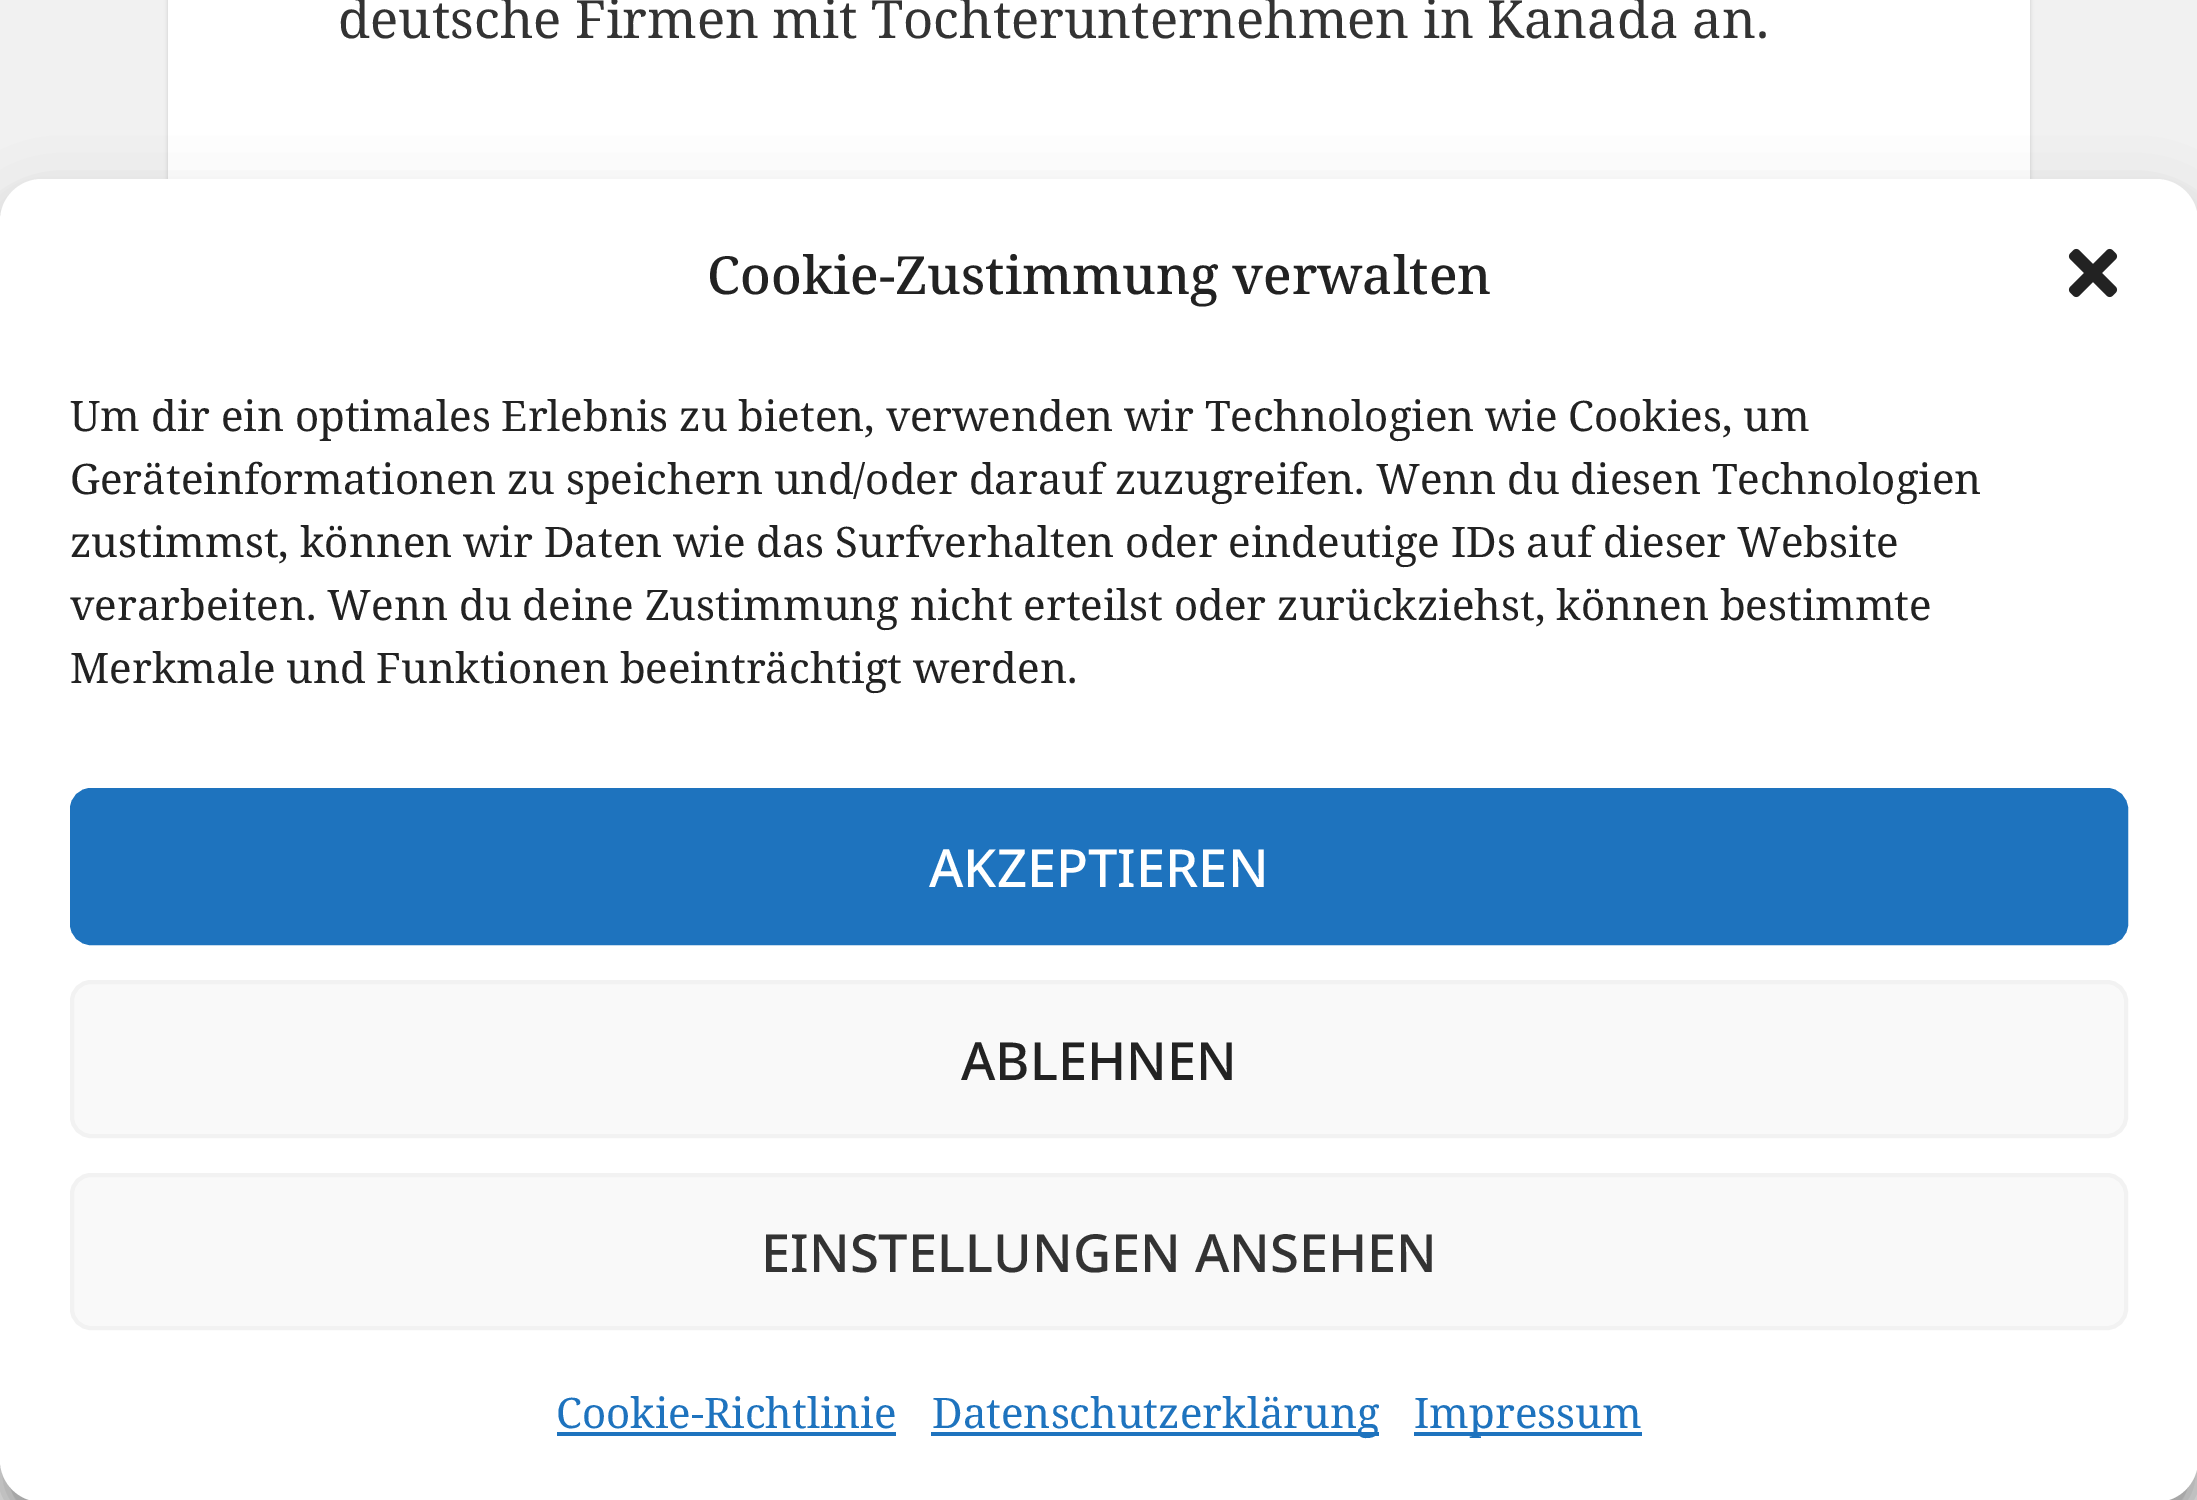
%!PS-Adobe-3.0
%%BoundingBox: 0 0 2197 1500
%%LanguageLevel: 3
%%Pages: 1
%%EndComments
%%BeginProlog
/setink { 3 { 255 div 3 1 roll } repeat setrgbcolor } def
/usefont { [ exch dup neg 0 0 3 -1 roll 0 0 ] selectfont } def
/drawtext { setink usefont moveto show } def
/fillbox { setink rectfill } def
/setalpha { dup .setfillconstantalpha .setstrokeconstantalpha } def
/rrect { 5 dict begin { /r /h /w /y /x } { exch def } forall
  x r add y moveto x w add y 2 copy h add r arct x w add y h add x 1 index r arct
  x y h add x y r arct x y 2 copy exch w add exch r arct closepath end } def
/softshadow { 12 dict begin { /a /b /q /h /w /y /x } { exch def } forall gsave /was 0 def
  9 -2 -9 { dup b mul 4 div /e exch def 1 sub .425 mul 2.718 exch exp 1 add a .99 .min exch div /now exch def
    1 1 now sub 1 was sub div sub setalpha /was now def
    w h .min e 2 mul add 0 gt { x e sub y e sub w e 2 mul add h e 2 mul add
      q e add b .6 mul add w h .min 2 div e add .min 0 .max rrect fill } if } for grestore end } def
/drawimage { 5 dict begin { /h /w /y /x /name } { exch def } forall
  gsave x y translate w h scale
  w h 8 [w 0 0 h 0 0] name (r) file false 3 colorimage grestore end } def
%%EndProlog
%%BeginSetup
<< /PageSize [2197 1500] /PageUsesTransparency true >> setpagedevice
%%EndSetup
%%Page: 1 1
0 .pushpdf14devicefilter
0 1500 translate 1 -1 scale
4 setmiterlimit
0 0 2197 1500 241 241 241 fillbox
0 0 0 setink
168 -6 1862 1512 0 2 0.15 softshadow
168 0 1862 179 255 255 255 fillbox
(deutsche Firmen mit Tochterunternehmen in Kanada an.) 338 38 /NotoSerif-Regular 52.5 51 51 51 drawtext
0 0 0 setink
0 200 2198 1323 42 10.5 0.23 softshadow
0 214 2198 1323 42 35 0.19 softshadow
255 255 255 setink
0 179 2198 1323 42 rrect fill
(Cookie-Zustimmung verwalten) 707 294 /NotoSerif-Medium 52.5 34 34 34 drawtext
(assets/img1.rgb) 2068 248 50 50 drawimage
(Um dir ein optimales Erlebnis zu bieten, verwenden wir Technologien wie Cookies, um) 70 431 /NotoSerif-Regular 42 34 34 34 drawtext
(Geräteinformationen zu speichern und/oder darauf zuzugreifen. Wenn du diesen Technologien) 70 494 /NotoSerif-Regular 42 34 34 34 drawtext
(zustimmst, können wir Daten wie das Surfverhalten oder eindeutige IDs auf dieser Website) 70 557 /NotoSerif-Regular 42 34 34 34 drawtext
(verarbeiten. Wenn du deine Zustimmung nicht erteilst oder zurückziehst, können bestimmte) 70 620 /NotoSerif-Regular 42 34 34 34 drawtext
(Merkmale und Funktionen beeinträchtigt werden.) 70 683 /NotoSerif-Regular 42 34 34 34 drawtext
30 115 190 setink
72 790 2054 153 19 rrect gsave fill grestore
4 setlinewidth
stroke
(AKZEPTIEREN) 929 887 /NotoSans-Medium 52.5 255 255 255 drawtext
249 249 249 setink
72 982 2054 154 19 rrect gsave fill grestore
242 242 242 setink
stroke
(ABLEHNEN) 961 1080 /NotoSans-Medium 52.5 34 34 34 drawtext
249 249 249 setink
72 1175 2054 153 19 rrect gsave fill grestore
242 242 242 setink
stroke
(EINSTELLUNGEN ANSEHEN) 761 1272 /NotoSans-Medium 52.5 51 51 51 drawtext
(Cookie-Richtlinie) 556 1428 /NotoSerif-Regular 42 30 115 190 drawtext
557 1432 339 4 30 115 190 fillbox
931 1432 448 4 30 115 190 fillbox
(Datenschutzerklärung) 932 1428 /NotoSerif-Regular 42 30 115 190 drawtext
1414 1432 228 4 30 115 190 fillbox
(Impressum) 1414 1428 /NotoSerif-Regular 42 30 115 190 drawtext
.poppdf14devicefilter showpage
%%EOF
